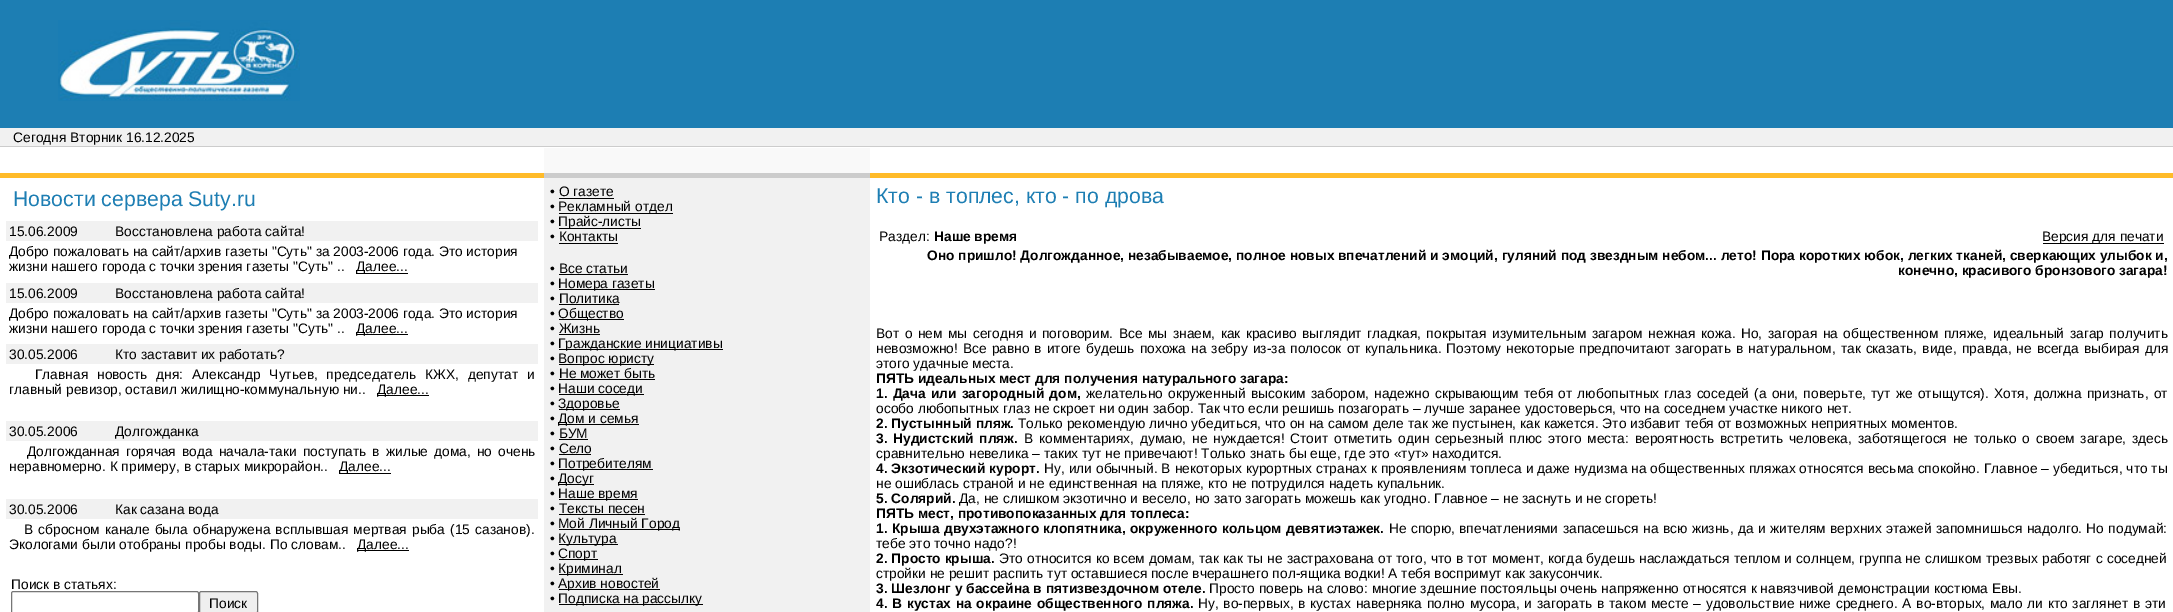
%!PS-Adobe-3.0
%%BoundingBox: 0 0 2173 612
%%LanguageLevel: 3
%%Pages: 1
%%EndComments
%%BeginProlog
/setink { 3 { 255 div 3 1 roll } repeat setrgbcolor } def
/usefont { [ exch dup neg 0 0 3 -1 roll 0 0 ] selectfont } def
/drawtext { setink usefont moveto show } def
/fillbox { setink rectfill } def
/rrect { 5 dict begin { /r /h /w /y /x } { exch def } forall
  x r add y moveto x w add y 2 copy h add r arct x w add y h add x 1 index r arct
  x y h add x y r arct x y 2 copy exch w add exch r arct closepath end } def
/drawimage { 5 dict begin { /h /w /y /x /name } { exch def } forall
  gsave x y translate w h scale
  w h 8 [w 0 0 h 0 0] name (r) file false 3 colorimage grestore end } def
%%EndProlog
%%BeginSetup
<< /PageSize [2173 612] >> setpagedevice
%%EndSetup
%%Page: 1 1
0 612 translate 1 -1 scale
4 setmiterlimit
0 0 2173 612 255 255 255 fillbox
0 0 2173 128 29 126 179 fillbox
(assets/img1.rgb) 58 20 242 81 drawimage
0 128 2173 18 241 241 241 fillbox
(Cегодня Вторник 16.12.2025) 13 142 /LiberationSans-Regular 13.75 0 0 0 drawtext
0 146 2173 1 204 204 204 fillbox
544 148 326 25 249 249 249 fillbox
0 173 544 5 255 187 41 fillbox
544 173 326 5 204 204 204 fillbox
870 173 1303 5 255 187 41 fillbox
(Новости сервера Suty.ru) 13 206 /LiberationSans-Regular 21.25 29 126 179 drawtext
6 221 532 20 241 241 241 fillbox
(15.06.2009) 9 236 /LiberationSans-Regular 13.75 0 0 0 drawtext
(Восстановлена работа сайта!) 115 236 /LiberationSans-Regular 13.75 0 0 0 drawtext
(Добро пожаловать на сайт/архив газеты "Суть" за 2003-2006 года. Это история) 9 256 /LiberationSans-Regular 13.75 0 0 0 drawtext
(жизни нашего города с точки зрения газеты "Суть" ..) 9 271 /LiberationSans-Regular 13.75 0 0 0 drawtext
356 273 52 1 0 0 0 fillbox
(Далее...) 356 271 /LiberationSans-Regular 13.75 0 0 0 drawtext
6 283 532 20 241 241 241 fillbox
(15.06.2009) 9 298 /LiberationSans-Regular 13.75 0 0 0 drawtext
(Восстановлена работа сайта!) 115 298 /LiberationSans-Regular 13.75 0 0 0 drawtext
(Добро пожаловать на сайт/архив газеты "Суть" за 2003-2006 года. Это история) 9 318 /LiberationSans-Regular 13.75 0 0 0 drawtext
(жизни нашего города с точки зрения газеты "Суть" ..) 9 333 /LiberationSans-Regular 13.75 0 0 0 drawtext
356 334 52 1 0 0 0 fillbox
(Далее...) 356 333 /LiberationSans-Regular 13.75 0 0 0 drawtext
6 344 532 20 241 241 241 fillbox
(30.05.2006) 9 359 /LiberationSans-Regular 13.75 0 0 0 drawtext
(Кто заставит их работать?) 115 359 /LiberationSans-Regular 13.75 0 0 0 drawtext
35 379 moveto 5 0 32 (Главная новость дня: Александр Чутьев, председатель КЖХ, депутат и) widthshow
(главный ревизор, оставил жилищно-коммунальную ни..) 9 394 /LiberationSans-Regular 13.75 0 0 0 drawtext
378 395 51 1 0 0 0 fillbox
(Далее...) 377 394 /LiberationSans-Regular 13.75 0 0 0 drawtext
6 421 532 20 241 241 241 fillbox
(30.05.2006) 9 436 /LiberationSans-Regular 13.75 0 0 0 drawtext
(Долгожданка) 115 436 /LiberationSans-Regular 13.75 0 0 0 drawtext
27 456 moveto 2.25 0 32 (Долгожданная горячая вода начала-таки поступать в жилые дома, но очень) widthshow
(неравномерно. К примеру, в старых микрорайон..) 9 471 /LiberationSans-Regular 13.75 0 0 0 drawtext
339 473 52 1 0 0 0 fillbox
(Далее...) 339 471 /LiberationSans-Regular 13.75 0 0 0 drawtext
6 499 532 20 241 241 241 fillbox
(30.05.2006) 9 514 /LiberationSans-Regular 13.75 0 0 0 drawtext
(Как сазана вода) 115 514 /LiberationSans-Regular 13.75 0 0 0 drawtext
24 534 moveto 1.25 0 32 (В сбросном канале была обнаружена всплывшая мертвая рыба \(15 сазанов\).) widthshow
(Экологами были отобраны пробы воды. По словам..) 9 549 /LiberationSans-Regular 13.75 0 0 0 drawtext
358 550 51 1 0 0 0 fillbox
(Далее...) 357 549 /LiberationSans-Regular 13.75 0 0 0 drawtext
(Поиск в статьях:) 11 589 /LiberationSans-Regular 13.75 0 0 0 drawtext
118 118 118 setink
11.5 591.5 187 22 2 rrect stroke
239 239 239 setink
199.5 591.5 58 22 2 rrect gsave fill grestore
118 118 118 setink
stroke
(Поиск) 209 608 /LiberationSans-Regular 13.75 0 0 0 drawtext
544 178 326 434 241 241 241 fillbox
(• О газете) 550 196 /LiberationSans-Regular 13.75 0 0 0 drawtext
559 198 55 1 0 0 0 fillbox
(•) 550 211 /LiberationSans-Regular 13.75 0 0 0 drawtext
559 213 114 1 0 0 0 fillbox
(Рекламный отдел) 558 211 /LiberationSans-Regular 13.75 0 0 0 drawtext
(•) 550 226 /LiberationSans-Regular 13.75 0 0 0 drawtext
559 228 82 1 0 0 0 fillbox
(Прайс-листы) 558 226 /LiberationSans-Regular 13.75 0 0 0 drawtext
(• Контакты) 550 241 /LiberationSans-Regular 13.75 0 0 0 drawtext
559 243 59 1 0 0 0 fillbox
(• Все cтатьи) 550 273 /LiberationSans-Regular 13.75 0 0 0 drawtext
559 274 69 1 0 0 0 fillbox
(•) 550 288 /LiberationSans-Regular 13.75 0 0 0 drawtext
559 289 96 1 0 0 0 fillbox
(Номера газеты) 558 288 /LiberationSans-Regular 13.75 0 0 0 drawtext
(• Политика) 550 303 /LiberationSans-Regular 13.75 0 0 0 drawtext
559 304 60 1 0 0 0 fillbox
(•) 550 318 /LiberationSans-Regular 13.75 0 0 0 drawtext
559 319 65 1 0 0 0 fillbox
(Общество) 558 318 /LiberationSans-Regular 13.75 0 0 0 drawtext
(• Жизнь) 550 333 /LiberationSans-Regular 13.75 0 0 0 drawtext
559 334 41 1 0 0 0 fillbox
(•) 550 348 /LiberationSans-Regular 13.75 0 0 0 drawtext
559 349 164 1 0 0 0 fillbox
(Гражданские инициативы) 558 348 /LiberationSans-Regular 13.75 0 0 0 drawtext
(•) 550 363 /LiberationSans-Regular 13.75 0 0 0 drawtext
559 364 95 1 0 0 0 fillbox
(Вопрос юристу) 558 363 /LiberationSans-Regular 13.75 0 0 0 drawtext
(• Не может быть) 550 378 /LiberationSans-Regular 13.75 0 0 0 drawtext
559 379 96 1 0 0 0 fillbox
(•) 550 393 /LiberationSans-Regular 13.75 0 0 0 drawtext
559 394 85 1 0 0 0 fillbox
(Наши соседи) 558 393 /LiberationSans-Regular 13.75 0 0 0 drawtext
(•) 550 408 /LiberationSans-Regular 13.75 0 0 0 drawtext
559 409 61 1 0 0 0 fillbox
(Здоровье) 558 408 /LiberationSans-Regular 13.75 0 0 0 drawtext
(•) 550 423 /LiberationSans-Regular 13.75 0 0 0 drawtext
559 424 80 1 0 0 0 fillbox
(Дом и семья) 558 423 /LiberationSans-Regular 13.75 0 0 0 drawtext
(• БУМ) 550 438 /LiberationSans-Regular 13.75 0 0 0 drawtext
559 439 29 1 0 0 0 fillbox
(• Село) 550 453 /LiberationSans-Regular 13.75 0 0 0 drawtext
559 454 32 1 0 0 0 fillbox
(•) 550 468 /LiberationSans-Regular 13.75 0 0 0 drawtext
559 469 94 1 0 0 0 fillbox
(Потребителям) 558 468 /LiberationSans-Regular 13.75 0 0 0 drawtext
(•) 550 483 /LiberationSans-Regular 13.75 0 0 0 drawtext
559 484 35 1 0 0 0 fillbox
(Досуг) 558 483 /LiberationSans-Regular 13.75 0 0 0 drawtext
(•) 550 498 /LiberationSans-Regular 13.75 0 0 0 drawtext
559 499 79 1 0 0 0 fillbox
(Наше время) 558 498 /LiberationSans-Regular 13.75 0 0 0 drawtext
(• Тексты песен) 550 513 /LiberationSans-Regular 13.75 0 0 0 drawtext
559 514 86 1 0 0 0 fillbox
(•) 550 528 /LiberationSans-Regular 13.75 0 0 0 drawtext
559 529 121 1 0 0 0 fillbox
(Мой Личный Город) 558 528 /LiberationSans-Regular 13.75 0 0 0 drawtext
(•) 550 543 /LiberationSans-Regular 13.75 0 0 0 drawtext
559 544 59 1 0 0 0 fillbox
(Культура) 558 543 /LiberationSans-Regular 13.75 0 0 0 drawtext
(•) 550 558 /LiberationSans-Regular 13.75 0 0 0 drawtext
559 559 39 1 0 0 0 fillbox
(Спорт) 558 558 /LiberationSans-Regular 13.75 0 0 0 drawtext
(•) 550 573 /LiberationSans-Regular 13.75 0 0 0 drawtext
559 574 64 1 0 0 0 fillbox
(Криминал) 558 573 /LiberationSans-Regular 13.75 0 0 0 drawtext
(•) 550 588 /LiberationSans-Regular 13.75 0 0 0 drawtext
559 589 101 1 0 0 0 fillbox
(Архив новостей) 558 588 /LiberationSans-Regular 13.75 0 0 0 drawtext
(•) 550 603 /LiberationSans-Regular 13.75 0 0 0 drawtext
559 604 144 1 0 0 0 fillbox
(Подписка на рассылку) 558 603 /LiberationSans-Regular 13.75 0 0 0 drawtext
(Кто - в топлес, кто - по дрова) 876 203 /LiberationSans-Regular 21.25 29 126 179 drawtext
(Раздел:) 879 241 /LiberationSans-Regular 13.75 0 0 0 drawtext
(Наше время) 934 241 /LiberationSans-Bold 13.75 0 0 0 drawtext
2043 243 121 1 0 0 0 fillbox
(Версия для печати) 2042 241 /LiberationSans-Regular 13.75 0 0 0 drawtext
(Оно пришло! Долгожданное, незабываемое, полное новых впечатлений и эмоций, гуляний под звездным небом... лето! Пора коротких юбок, легких тканей, сверкающих улыбок и,) 927 260 /LiberationSans-Bold 13.75 0 0 0 drawtext
(конечно, красивого бронзового загара!) 1898 275 /LiberationSans-Bold 13.75 0 0 0 drawtext
/LiberationSans-Regular 13.75 usefont
876 338 moveto 1.7 0 32 (Вот о нем мы сегодня и поговорим. Все мы знаем, как красиво выглядит гладкая, покрытая изумительным загаром нежная кожа. Но, загорая на общественном пляже, идеальный загар получить) widthshow
876 353 moveto 1.2 0 32 (невозможно! Все равно в итоге будешь похожа на зебру из-за полосок от купальника. Поэтому некоторые предпочитают загорать в натуральном, так сказать, виде, правда, не всегда выбирая для) widthshow
(этого удачные места.) 876 368 /LiberationSans-Regular 13.75 0 0 0 drawtext
(ПЯТЬ идеальных мест для получения натурального загара:) 876 383 /LiberationSans-Bold 13.75 0 0 0 drawtext
876 398 moveto 1.35 0 32 (1. Дача или загородный дом,) widthshow
/LiberationSans-Regular 13.75 usefont
1086 398 moveto 1.35 0 32 (желательно окруженный высоким забором, надежно скрывающим тебя от любопытных глаз соседей \(а они, поверьте, тут же отыщутся\). Хотя, должна признать, от) widthshow
(особо любопытных глаз не скроет ни один забор. Так что если решишь позагорать – лучше заранее удостоверься, что на соседнем участке никого нет.) 876 413 /LiberationSans-Regular 13.75 0 0 0 drawtext
(2. Пустынный пляж.) 876 428 /LiberationSans-Bold 13.75 0 0 0 drawtext
(Только рекомендую лично убедиться, что он на самом деле так же пустынен, как кажется. Это избавит тебя от возможных неприятных моментов.) 1018 428 /LiberationSans-Regular 13.75 0 0 0 drawtext
(3.) 876 443 /LiberationSans-Bold 13.75 0 0 0 drawtext
893 443 moveto 2 0 32 (Нудистский пляж.) widthshow
/LiberationSans-Regular 13.75 usefont
1024 443 moveto 2 0 32 (В комментариях, думаю, не нуждается! Стоит отметить один серьезный плюс этого места: вероятность встретить человека, заботящегося не только о своем загаре, здесь) widthshow
(сравнительно невелика – таких тут не привечают! Только знать бы еще, где это «тут» находится.) 876 458 /LiberationSans-Regular 13.75 0 0 0 drawtext
(4. Экзотический курорт.) 876 473 /LiberationSans-Bold 13.75 0 0 0 drawtext
/LiberationSans-Regular 13.75 usefont
1044 473 moveto 0.15 0 32 (Ну, или обычный. В некоторых курортных странах к проявлениям топлеса и даже нудизма на общественных пляжах относятся весьма спокойно. Главное – убедиться, что ты) widthshow
(не ошиблась страной и не единственная на пляже, кто не потрудился надеть купальник.) 876 488 /LiberationSans-Regular 13.75 0 0 0 drawtext
(5. Солярий.) 876 503 /LiberationSans-Bold 13.75 0 0 0 drawtext
(Да, не слишком экзотично и весело, но зато загорать можешь как угодно. Главное – не заснуть и не сгореть!) 959 503 /LiberationSans-Regular 13.75 0 0 0 drawtext
(ПЯТЬ мест, противопоказанных для топлеса:) 876 518 /LiberationSans-Bold 13.75 0 0 0 drawtext
876 533 moveto 0.6 0 32 (1. Крыша двухэтажного клопятника, окруженного кольцом девятиэтажек.) widthshow
/LiberationSans-Regular 13.75 usefont
1389 533 moveto 0.6 0 32 (Не спорю, впечатлениями запасешься на всю жизнь, да и жителям верхних этажей запомнишься надолго. Но подумай:) widthshow
(тебе это точно надо?!) 876 548 /LiberationSans-Regular 13.75 0 0 0 drawtext
(2. Просто крыша.) 876 563 /LiberationSans-Bold 13.75 0 0 0 drawtext
/LiberationSans-Regular 13.75 usefont
999 563 moveto 0.35 0 32 (Это относится ко всем домам, так как ты не застрахована от того, что в тот момент, когда будешь наслаждаться теплом и солнцем, группа не слишком трезвых работяг с соседней) widthshow
(стройки не решит распить тут оставшиеся после вчерашнего пол-ящика водки! А тебя воспримут как закусончик.) 876 578 /LiberationSans-Regular 13.75 0 0 0 drawtext
(3. Шезлонг у бассейна в пятизвездочном отеле.) 876 593 /LiberationSans-Bold 13.75 0 0 0 drawtext
(Просто поверь на слово: многие здешние постояльцы очень напряженно относятся к навязчивой демонстрации костюма Евы.) 1209 593 /LiberationSans-Regular 13.75 0 0 0 drawtext
/LiberationSans-Bold 13.75 usefont
876 608 moveto 0.9 0 32 (4. В кустах на окраине общественного пляжа.) widthshow
/LiberationSans-Regular 13.75 usefont
1198 608 moveto 0.9 0 32 (Ну, во-первых, в кустах наверняка полно мусора, и загорать в таком месте – удовольствие ниже среднего. А во-вторых, мало ли кто заглянет в эти) widthshow
showpage
%%EOF
